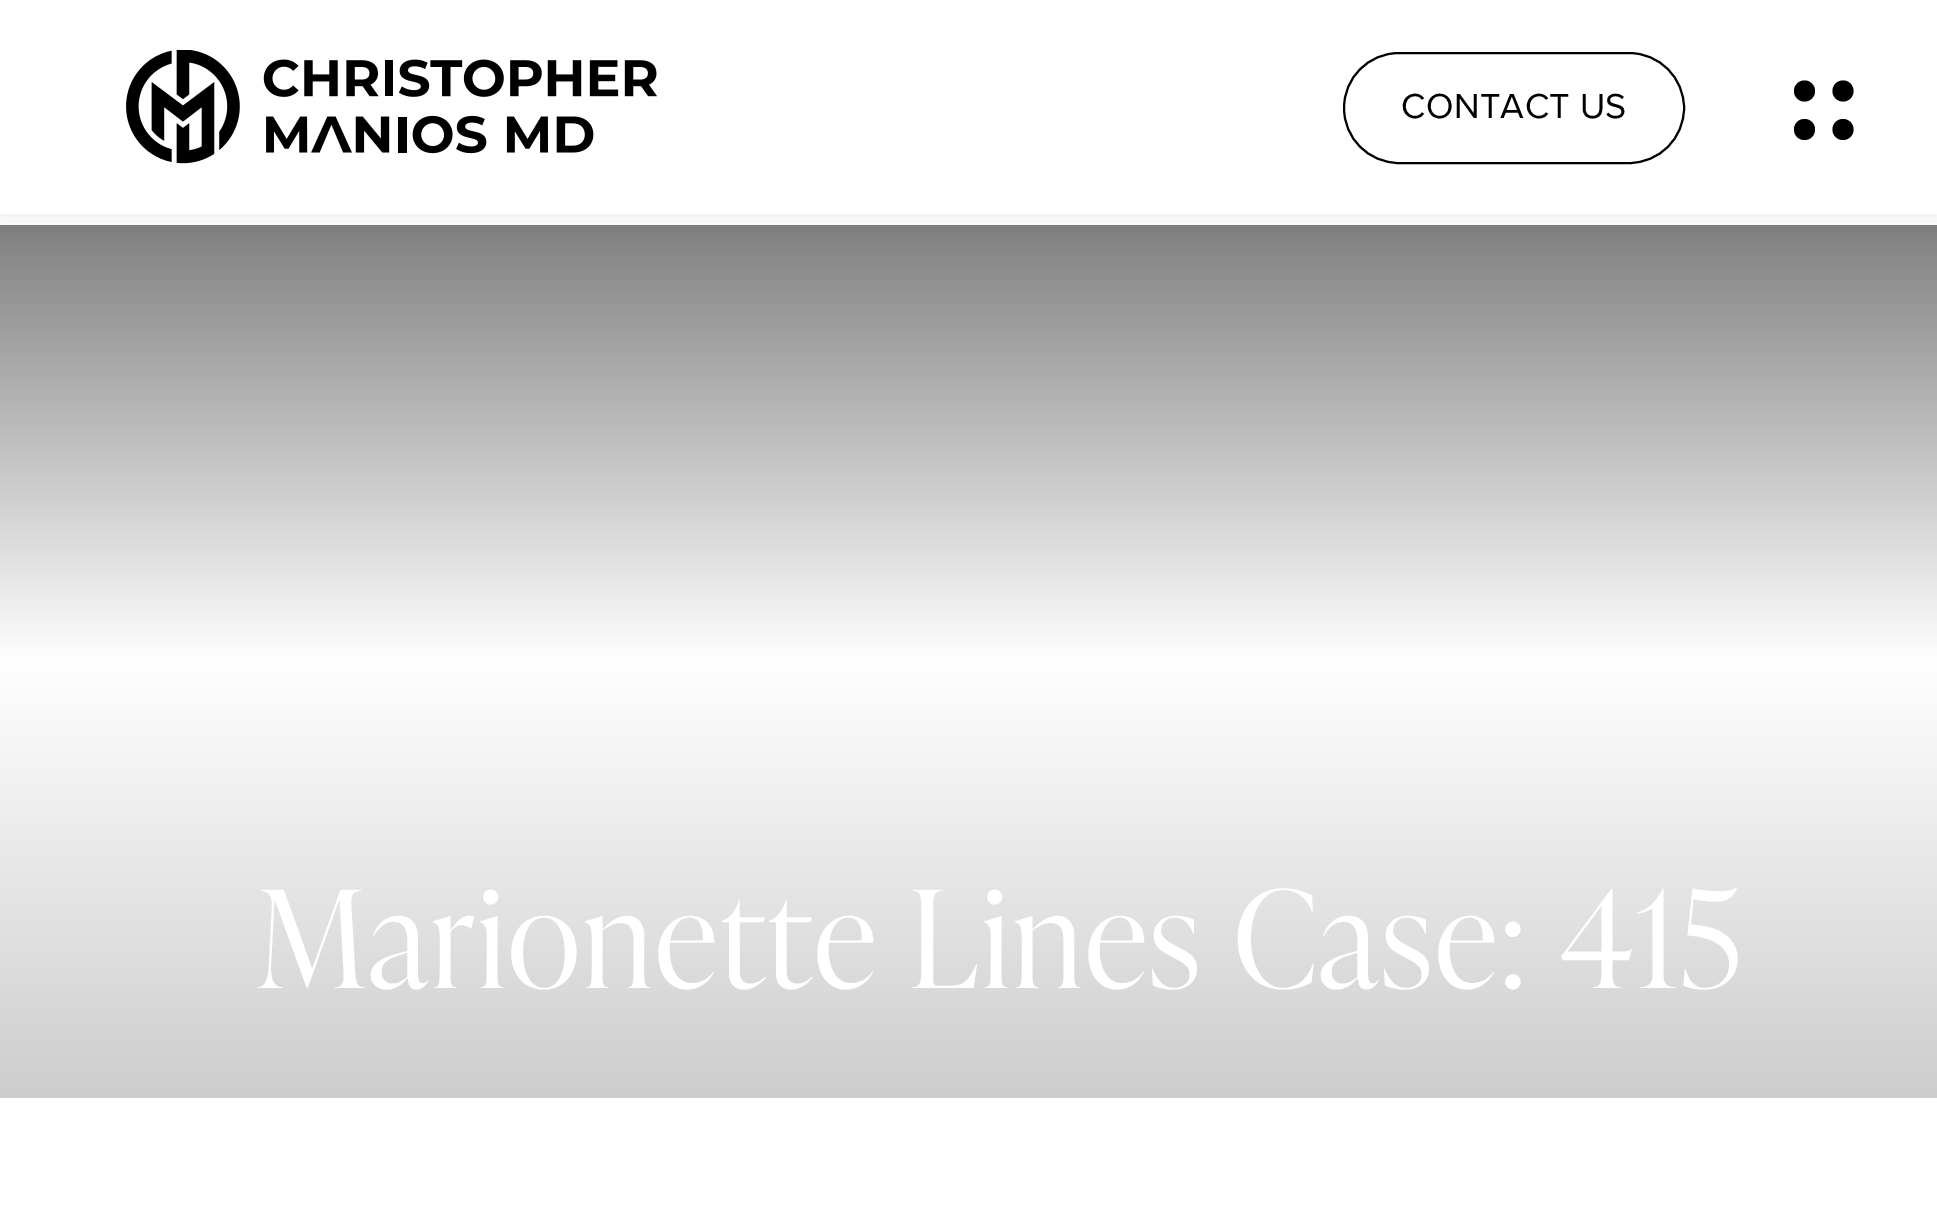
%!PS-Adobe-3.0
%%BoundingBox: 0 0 1937 1229
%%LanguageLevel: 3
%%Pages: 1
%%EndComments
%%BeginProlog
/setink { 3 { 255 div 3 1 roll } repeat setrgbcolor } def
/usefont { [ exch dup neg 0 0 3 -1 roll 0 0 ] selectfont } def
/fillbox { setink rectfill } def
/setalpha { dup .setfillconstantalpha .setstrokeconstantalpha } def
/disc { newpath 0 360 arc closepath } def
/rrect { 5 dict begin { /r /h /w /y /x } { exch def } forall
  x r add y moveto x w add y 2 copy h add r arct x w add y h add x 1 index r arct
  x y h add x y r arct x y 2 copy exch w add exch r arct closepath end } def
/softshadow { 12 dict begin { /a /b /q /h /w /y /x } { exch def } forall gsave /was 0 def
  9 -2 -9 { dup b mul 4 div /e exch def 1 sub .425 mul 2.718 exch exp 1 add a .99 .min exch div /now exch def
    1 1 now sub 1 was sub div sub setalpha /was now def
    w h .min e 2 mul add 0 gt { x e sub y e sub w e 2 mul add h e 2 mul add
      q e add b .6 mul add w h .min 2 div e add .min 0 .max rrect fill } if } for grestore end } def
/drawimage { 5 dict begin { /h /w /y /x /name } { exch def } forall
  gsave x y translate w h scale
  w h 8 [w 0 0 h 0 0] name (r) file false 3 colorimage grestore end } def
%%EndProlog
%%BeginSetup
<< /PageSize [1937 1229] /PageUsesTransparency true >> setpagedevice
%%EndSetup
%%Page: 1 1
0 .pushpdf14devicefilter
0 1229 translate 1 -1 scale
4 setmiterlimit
0 0 1937 1229 255 255 255 fillbox
gsave 0 225 moveto 1937 225 lineto 1937 1098 lineto 0 1098 lineto closepath clip newpath
<< /ShadingType 2 /ColorSpace /DeviceRGB /Coords [969 1098 969 225] /Extend [true true] /Function << /FunctionType 3 /Domain [0 1] /Functions [<< /FunctionType 2 /Domain [0 1] /C0 [0.804 0.804 0.804] /C1 [1 1 1] /N 1 >> << /FunctionType 2 /Domain [0 1] /C0 [1 1 1] /C1 [0.502 0.502 0.502] /N 1 >>] /Bounds [0.5] /Encode [0 1 0 1] >> >> shfill grestore
0 0 0 setink
0 0 1937 214 0 11 0.1 softshadow
0 0 1937 214 255 255 255 fillbox
(assets/img1.rgb) 126 50 531 114 drawimage
0 0 0 setink
2 setlinewidth
1344 53 340 110 55 rrect stroke
/ProximaNova-Regular 36 usefont
1401 118 moveto 0.4 0 (CONTACT US) ashow
1804.5 91 10.5 disc fill
1843 91 10.5 disc fill
1804.5 129.5 10.5 disc fill
1843 129.5 10.5 disc fill
/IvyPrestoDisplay-Light 135 usefont
255 255 255 setink
257 988 moveto 2.9 0 (Marionette Lines Case: 415) ashow
.poppdf14devicefilter showpage
%%EOF
